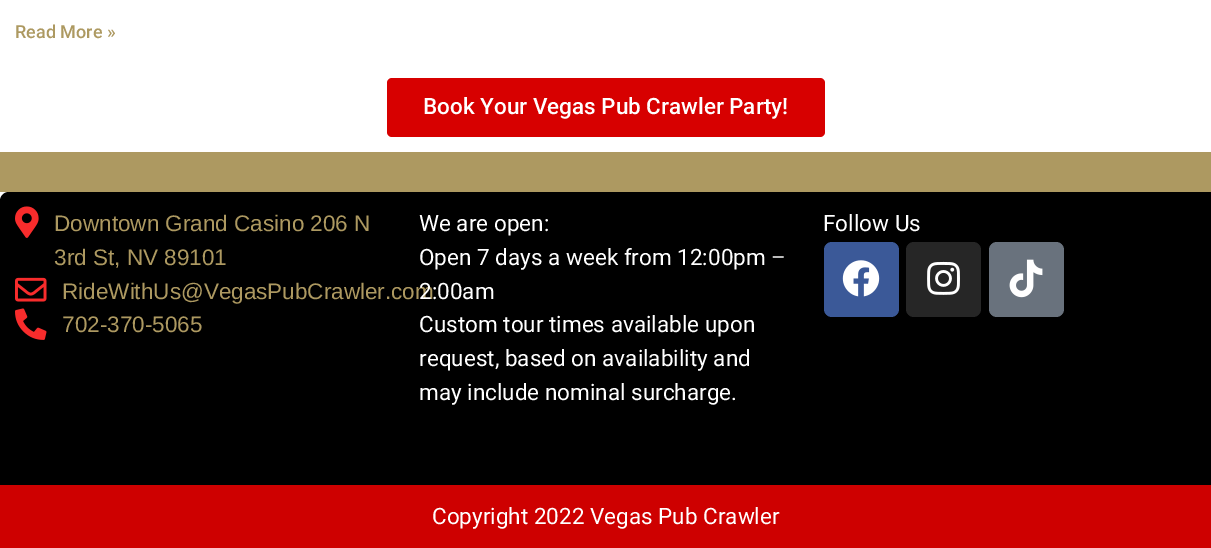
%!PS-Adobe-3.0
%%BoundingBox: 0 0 1211 548
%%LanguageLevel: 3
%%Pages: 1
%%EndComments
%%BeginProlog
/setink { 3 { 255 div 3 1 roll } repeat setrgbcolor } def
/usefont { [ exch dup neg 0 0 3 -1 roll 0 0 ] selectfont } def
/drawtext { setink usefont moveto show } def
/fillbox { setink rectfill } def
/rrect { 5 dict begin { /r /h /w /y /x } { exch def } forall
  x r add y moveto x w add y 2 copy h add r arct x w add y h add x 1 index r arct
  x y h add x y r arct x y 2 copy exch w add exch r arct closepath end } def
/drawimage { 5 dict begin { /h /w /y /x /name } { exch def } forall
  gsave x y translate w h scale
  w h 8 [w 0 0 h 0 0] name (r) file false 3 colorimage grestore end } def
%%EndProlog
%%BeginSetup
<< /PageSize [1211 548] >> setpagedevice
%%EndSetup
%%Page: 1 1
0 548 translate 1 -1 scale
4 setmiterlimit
0 0 1211 548 255 255 255 fillbox
(Read More ») 15 38 /Roboto-Medium 18 173 153 97 drawtext
215 0 0 setink
387 78 438 59 5 rrect fill
(Book Your Vegas Pub Crawler Party!) 423 114 /Roboto-Medium 22.5 255 255 255 drawtext
0 152 1211 40 173 153 97 fillbox
0 0 0 setink
9 192 moveto 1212 192 lineto 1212 425 lineto 0 425 lineto 0 201 lineto 0 196 4 192 9 192 curveto closepath fill
(assets/img1.rgb) 15 206 24 32 drawimage
(Downtown Grand Casino 206 N) 54 231 /LiberationSans-Regular 22.5 173 153 97 drawtext
(3rd St, NV 89101) 54 265 /LiberationSans-Regular 22.5 173 153 97 drawtext
(assets/img2.rgb) 15 277 32 25 drawimage
(RideWithUs@VegasPubCrawler.com) 62 299 /LiberationSans-Regular 22.5 173 153 97 drawtext
(assets/img3.rgb) 15 308 32 32 drawimage
(702-370-5065) 62 332 /LiberationSans-Regular 22.5 173 153 97 drawtext
(We are open:) 419 231 /Roboto-Regular 22.5 255 255 255 drawtext
(Open 7 days a week from 12:00pm –) 419 265 /Roboto-Regular 22.5 255 255 255 drawtext
(2:00am) 419 299 /Roboto-Regular 22.5 255 255 255 drawtext
(Custom tour times available upon) 419 332 /Roboto-Regular 22.5 255 255 255 drawtext
(request, based on availability and) 419 366 /Roboto-Regular 22.5 255 255 255 drawtext
(may include nominal surcharge.) 419 400 /Roboto-Regular 22.5 255 255 255 drawtext
(Follow Us) 823 231 /Roboto-Regular 22.5 255 255 255 drawtext
59 89 152 setink
824 242 75 75 8 rrect fill
(assets/img4.rgb) 842 260 38 37 drawimage
38 38 38 setink
906 242 75 75 8 rrect fill
(assets/img5.rgb) 927 261 33 34 drawimage
105 114 125 setink
989 242 75 75 8 rrect fill
(assets/img6.rgb) 1009 259 34 39 drawimage
0 425 1211 60 0 0 0 fillbox
0 485 1211 63 206 0 0 fillbox
(Copyright 2022 Vegas Pub Crawler) 432 524 /Roboto-Regular 22.5 255 255 255 drawtext
showpage
%%EOF
